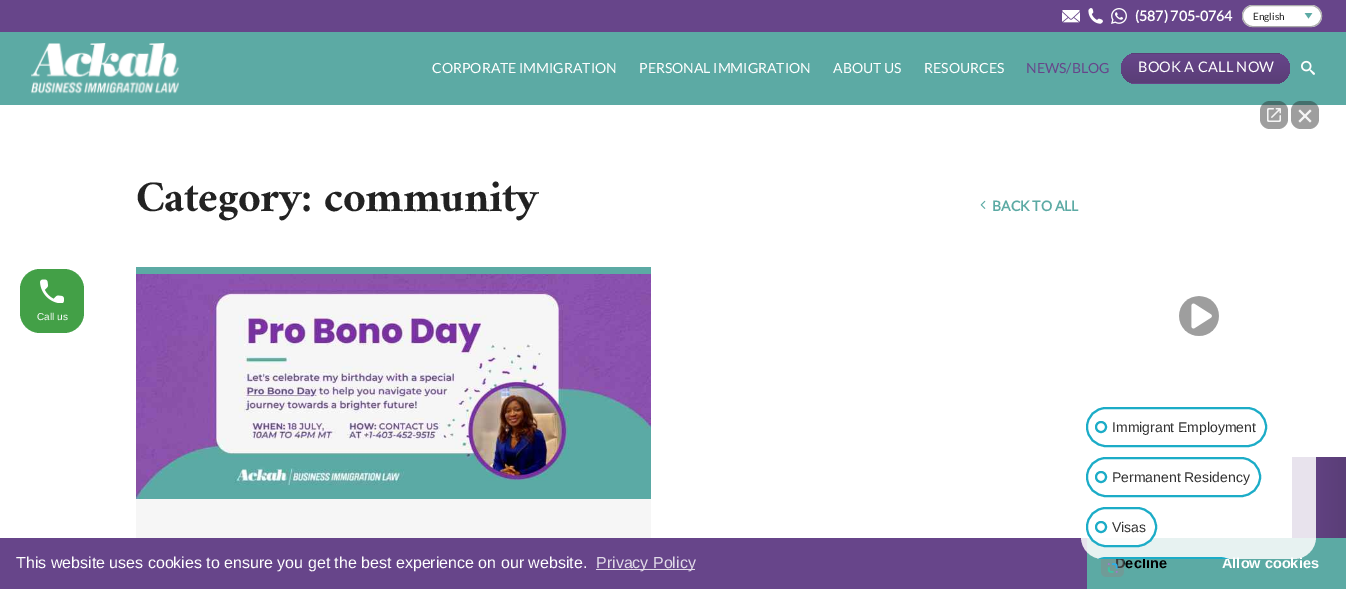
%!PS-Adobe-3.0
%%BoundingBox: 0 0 1346 589
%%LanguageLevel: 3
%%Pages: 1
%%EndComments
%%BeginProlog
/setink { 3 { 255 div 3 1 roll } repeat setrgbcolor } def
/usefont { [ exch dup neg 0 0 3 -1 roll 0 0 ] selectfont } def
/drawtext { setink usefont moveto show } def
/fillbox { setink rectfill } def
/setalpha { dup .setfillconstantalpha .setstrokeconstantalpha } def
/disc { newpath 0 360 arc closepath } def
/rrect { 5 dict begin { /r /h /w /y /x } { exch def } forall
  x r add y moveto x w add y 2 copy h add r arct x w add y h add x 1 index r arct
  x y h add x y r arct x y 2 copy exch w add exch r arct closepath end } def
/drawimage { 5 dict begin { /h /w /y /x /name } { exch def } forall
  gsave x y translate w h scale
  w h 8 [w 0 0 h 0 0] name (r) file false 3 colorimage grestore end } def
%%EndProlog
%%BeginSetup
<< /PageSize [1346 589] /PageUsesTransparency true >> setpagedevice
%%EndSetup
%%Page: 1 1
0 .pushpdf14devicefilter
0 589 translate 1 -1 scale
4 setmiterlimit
0 0 1346 589 255 255 255 fillbox
0 0 1346 32 103 69 138 fillbox
(assets/img1.rgb) 1062 10 18 13 drawimage
(assets/img2.rgb) 1088 8 15 16 drawimage
(assets/img3.rgb) 1111 8 16 16 drawimage
(\(587\) 705-0764) 1135 21 /Lato-Bold 14 255 255 255 drawtext
1242 5 80 22 11 rrect fill
gsave
1304 13 9 6 rectclip
92 170 164 setink
1304.5 12.5 moveto 1312.5 12.5 lineto 1308.5 18.5 lineto closepath fill
grestore
171 171 171 setink
1242.5 5.5 79 21 10.5 rrect stroke
(English) 1253 20 /Lato-Regular 10 34 34 34 drawtext
0 32 1346 73 92 170 164 fillbox
(assets/img4.rgb) 31 43 148 51 drawimage
(CORPORATE IMMIGRATION) 432 73 /Lato-Regular 14 255 255 255 drawtext
(PERSONAL IMMIGRATION) 639 73 /Lato-Regular 14 255 255 255 drawtext
(ABOUT US) 833 73 /Lato-Regular 14 255 255 255 drawtext
(RESOURCES) 924 73 /Lato-Regular 14 255 255 255 drawtext
(NEWS/BLOG) 1026 73 /Lato-Regular 14 103 69 138 drawtext
gsave
1121 53 169 31 15.5 rrect clip newpath
gsave 1131 53 moveto 1280 53 lineto 1280 54 lineto 1131 54 lineto closepath clip newpath
<< /ShadingType 2 /ColorSpace /DeviceRGB /Coords [1206 25 1206 54] /Extend [true true] /Function << /FunctionType 2 /Domain [0 1] /C0 [0.404 0.271 0.541] /C1 [0.353 0.243 0.467] /N 1 >> >> shfill grestore
gsave 1121 54 moveto 1290 54 lineto 1290 83 lineto 1121 83 lineto closepath clip newpath
<< /ShadingType 2 /ColorSpace /DeviceRGB /Coords [1206 54 1206 83] /Extend [true true] /Function << /FunctionType 2 /Domain [0 1] /C0 [0.404 0.271 0.541] /C1 [0.353 0.243 0.467] /N 1 >> >> shfill grestore
gsave 1131 83 moveto 1280 83 lineto 1280 84 lineto 1131 84 lineto closepath clip newpath
<< /ShadingType 2 /ColorSpace /DeviceRGB /Coords [1206 83 1206 112] /Extend [true true] /Function << /FunctionType 2 /Domain [0 1] /C0 [0.404 0.271 0.541] /C1 [0.353 0.243 0.467] /N 1 >> >> shfill grestore
grestore
/Lato-Regular 14.5 usefont
255 255 255 setink
1138 72 moveto 0.25 0 (BOOK A CALL NOW) ashow
(assets/img5.rgb) 1301 60 14 15 drawimage
/Amiri-Bold 44 usefont
34 34 34 setink
136 211 moveto -0.5 0 (Category: community) ashow
(assets/img6.rgb) 980 200 6 9 drawimage
(BACK TO ALL) 992 211 /Lato-Bold 14 92 170 164 drawtext
136 499 515 39 246 246 246 fillbox
136 267 515 7 92 170 164 fillbox
(assets/img7.rgb) 136 274 515 225 drawimage
67 160 71 setink
20 269 64 64 20 rrect fill
(assets/img8.rgb) 40 279 24 24 drawimage
(Call us) 37 320 /LiberationSans-Regular 10 255 255 255 drawtext
gsave 1292 457 moveto 1346 457 lineto 1346 538 lineto 1292 538 lineto closepath clip newpath
<< /ShadingType 2 /ColorSpace /DeviceRGB /Coords [1292 523 1346 523] /Extend [true true] /Function << /FunctionType 2 /Domain [0 1] /C0 [0.404 0.271 0.541] /C1 [0.353 0.243 0.467] /N 1 >> >> shfill grestore
0 538 1087 51 103 69 138 fillbox
1087 538 259 51 92 170 164 fillbox
(Decline) 1115 568 /LiberationSans-Bold 14.5 0 0 0 drawtext
(Allow cookies) 1222 568 /LiberationSans-Bold 14.5 255 255 255 drawtext
0.85 setalpha
1081 142 235 417 22 rrect fill
0.45 setalpha
39 39 39 setink
1260 101 28 28 10 rrect fill
1 setalpha
(assets/img9.rgb) 1267 108 14 14 drawimage
0.45 setalpha
1291 101 28 28 10 rrect fill
1 setalpha
245 245 245 setink
1298.5 111 moveto 1300 109.5 lineto 1311.5 121 lineto 1310 122.5 lineto closepath fill
1310 109.5 moveto 1311.5 111 lineto 1300 122.5 lineto 1298.5 121 lineto closepath fill
(assets/img10.rgb) 1179 296 40 40 drawimage
28 172 199 setink
2 setlinewidth
1087 408 179 38 19 rrect stroke
1101 427 5 disc stroke
(Immigrant Employment) 1112 432 /LiberationSans-Regular 14 49 49 49 drawtext
28 172 199 setink
1087 458 173 38 19 rrect stroke
1101 477 5 disc stroke
(Permanent Residency) 1112 482 /LiberationSans-Regular 14 49 49 49 drawtext
0.85 setalpha
255 255 255 setink
1087 508 69 38 19 rrect fill
1 setalpha
28 172 199 setink
1087 508 69 38 19 rrect stroke
1101 527 5 disc stroke
(Visas) 1112 532 /LiberationSans-Regular 14 49 49 49 drawtext
gsave
1081 188 moveto 1316 188 lineto 1316 539 lineto 1316 550 1307 559 1296 559 curveto 1101 559 lineto 1090 559 1081 550 1081 539 curveto closepath clip newpath
0.85 setalpha
255 255 255 setink
1106 557 moveto 1220 557 lineto 1231 557 1240 566 1240 577 curveto 1240 559 lineto 1086 559 lineto 1086 577 lineto 1086 566 1095 557 1106 557 curveto closepath fill
grestore
28 172 199 setink
1106 557 moveto 1103 557 1100 558 1098 559 curveto 1229 559 lineto 1226 558 1223 557 1220 557 curveto closepath fill
(assets/img11.rgb) 1101 559 23 18 drawimage
(This website uses cookies to ensure you get the best experience on our website.) 16 568 /LiberationSans-Regular 16 255 255 255 drawtext
596 569 99 1 225 218 232 fillbox
(Privacy Policy) 596 568 /LiberationSans-Regular 16 225 218 232 drawtext
.poppdf14devicefilter showpage
%%EOF
